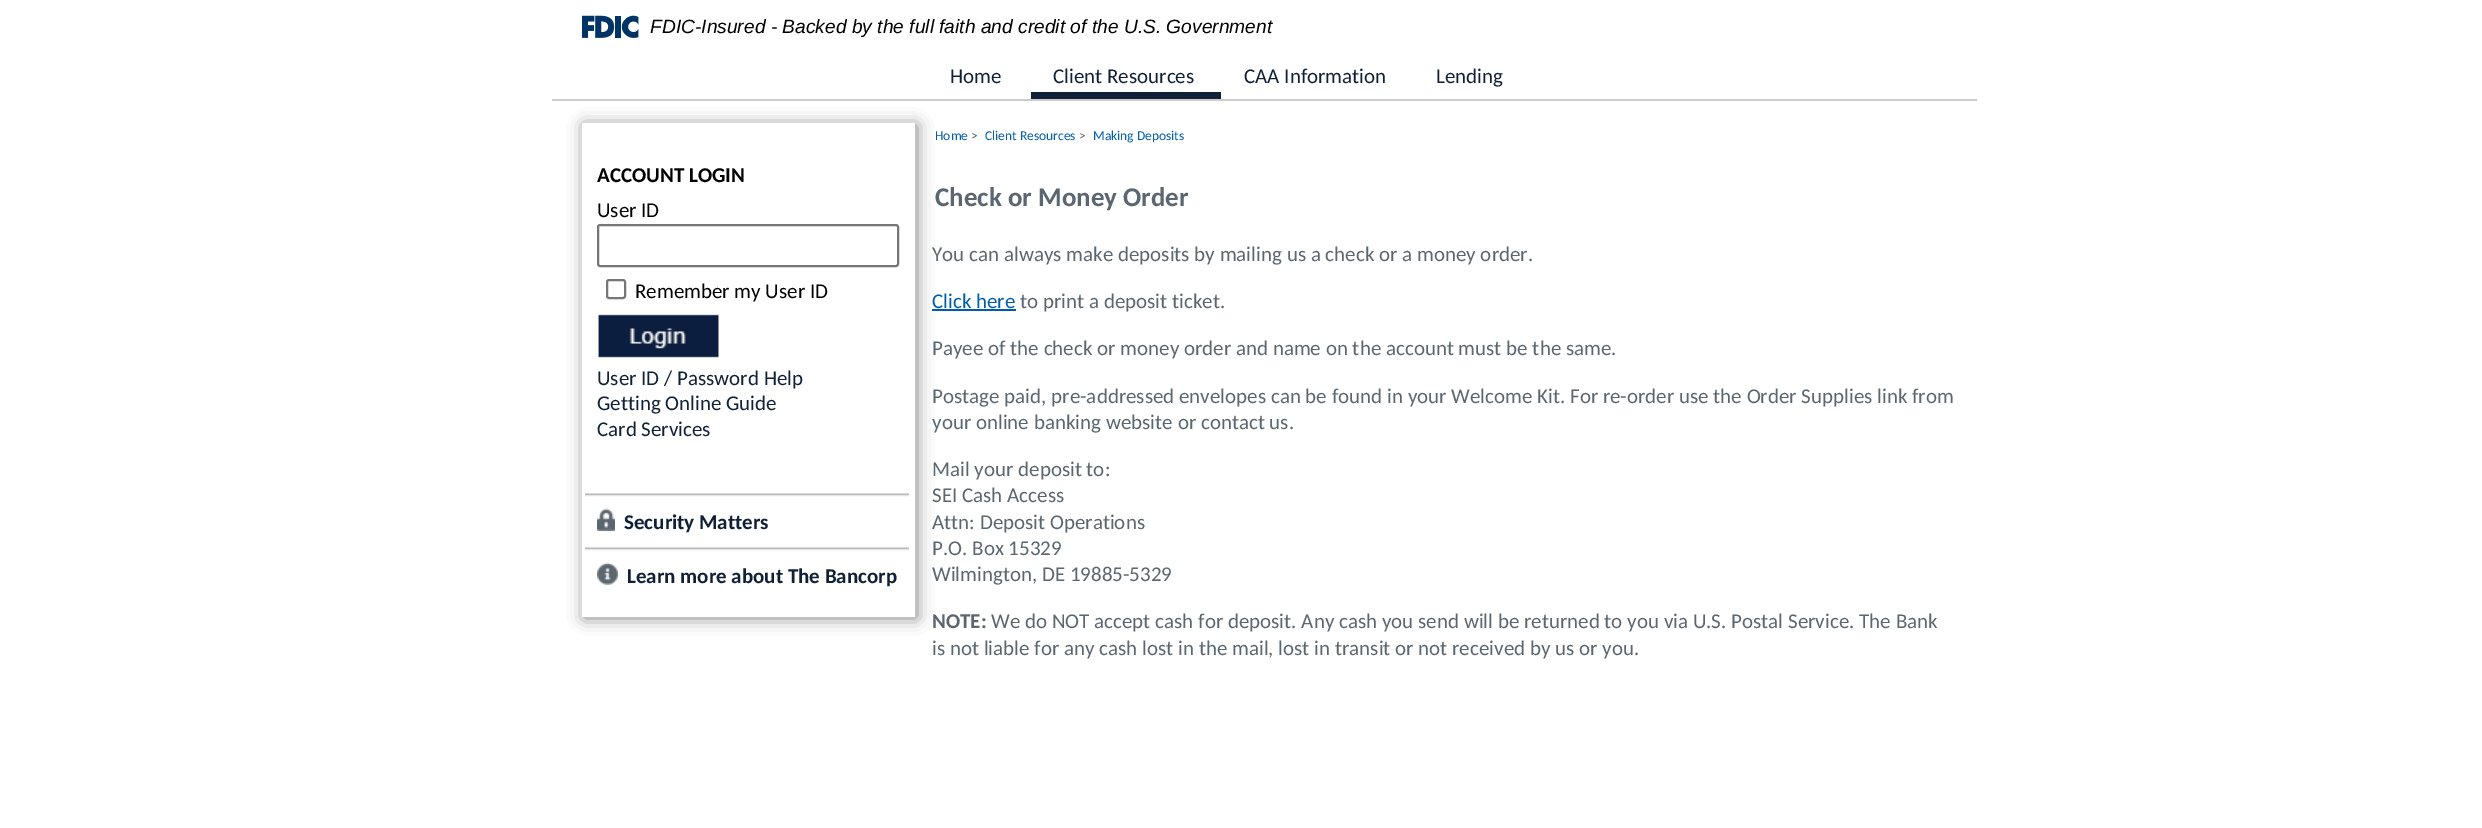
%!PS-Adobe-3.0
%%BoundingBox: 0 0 2482 828
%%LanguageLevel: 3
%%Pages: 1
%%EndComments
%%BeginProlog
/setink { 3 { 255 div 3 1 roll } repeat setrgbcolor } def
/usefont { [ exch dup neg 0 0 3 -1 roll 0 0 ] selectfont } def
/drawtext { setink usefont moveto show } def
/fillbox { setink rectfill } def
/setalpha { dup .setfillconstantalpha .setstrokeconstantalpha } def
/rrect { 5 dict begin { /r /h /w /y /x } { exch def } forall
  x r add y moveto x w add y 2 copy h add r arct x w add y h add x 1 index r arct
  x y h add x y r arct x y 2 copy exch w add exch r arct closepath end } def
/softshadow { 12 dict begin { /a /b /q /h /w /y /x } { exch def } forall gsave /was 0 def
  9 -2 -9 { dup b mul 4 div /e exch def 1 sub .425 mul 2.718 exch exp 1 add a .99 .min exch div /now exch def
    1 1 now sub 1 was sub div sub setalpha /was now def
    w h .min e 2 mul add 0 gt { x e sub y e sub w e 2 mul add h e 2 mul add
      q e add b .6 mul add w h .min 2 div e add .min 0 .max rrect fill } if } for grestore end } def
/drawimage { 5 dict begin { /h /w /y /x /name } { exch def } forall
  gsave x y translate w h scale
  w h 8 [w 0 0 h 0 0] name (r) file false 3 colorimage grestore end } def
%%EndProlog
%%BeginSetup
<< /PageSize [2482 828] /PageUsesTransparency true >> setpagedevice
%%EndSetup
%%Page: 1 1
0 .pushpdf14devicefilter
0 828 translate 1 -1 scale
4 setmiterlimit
0 0 2482 828 255 255 255 fillbox
(assets/img1.rgb) 582 15 57 23 drawimage
(FDIC-Insured - Backed by the full faith and credit of the U.S. Government) 650 33 /LiberationSans-Italic 19.2 0 0 0 drawtext
552 99 1425 2 204 204 204 fillbox
(Home) 950 83 /Carlito-Regular 21 16 32 55 drawtext
1031 92 190 7 16 32 55 fillbox
(Client Resources) 1053 83 /Carlito-Regular 21 16 32 55 drawtext
(CAA Information) 1244 83 /Carlito-Regular 21 16 32 55 drawtext
(Lending) 1436 83 /Carlito-Regular 21 16 32 55 drawtext
gsave
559 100 moveto 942 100 lineto 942 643 lineto 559 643 lineto closepath 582 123 moveto 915 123 lineto 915 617 lineto 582 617 lineto closepath eoclip newpath
128 128 128 setink
584 125 333 493 0 8 1 softshadow
grestore
(ACCOUNT LOGIN) 597 182 /Carlito-Bold 21 0 0 0 drawtext
(User ID) 597 217 /Carlito-Regular 21 0 0 0 drawtext
118 118 118 setink
2 setlinewidth
598 225 300 41 2 rrect stroke
607 280 18 18 2 rrect stroke
(Remember my User ID) 635 298 /Carlito-Regular 21 0 0 0 drawtext
(assets/img2.rgb) 598 314 121 44 drawimage
(User ID / Password Help) 597 385 /Carlito-Regular 21 16 32 55 drawtext
(Getting Online Guide) 597 410 /Carlito-Regular 21 16 32 55 drawtext
(Card Services) 597 436 /Carlito-Regular 21 16 32 55 drawtext
(assets/img3.rgb) 585 493 324 4 drawimage
(assets/img4.rgb) 597 508 18 23 drawimage
(Security Matters) 624 529 /Carlito-Bold 21 16 32 55 drawtext
(assets/img3.rgb) 585 547 324 4 drawimage
(assets/img5.rgb) 597 562 21 23 drawimage
(Learn more about The Bancorp) 627 583 /Carlito-Bold 21 16 32 55 drawtext
(Home) 935 140 /Carlito-Regular 13.5 0 93 170 drawtext
(>) 971 140 /Carlito-Regular 13.5 91 102 112 drawtext
(Client Resources) 985 140 /Carlito-Regular 13.5 0 93 170 drawtext
(>) 1079 140 /Carlito-Regular 13.5 91 102 112 drawtext
(Making Deposits) 1093 140 /Carlito-Regular 13.5 0 93 170 drawtext
(Check or Money Order) 935 206 /Carlito-Bold 27 91 102 112 drawtext
(You can always make deposits by mailing us a check or a money order.) 932 261 /Carlito-Regular 21 91 102 112 drawtext
(Click here) 932 308 /Carlito-Regular 21 0 93 170 drawtext
932 309 84 2 0 93 170 fillbox
(to print a deposit ticket.) 1020 308 /Carlito-Regular 21 91 102 112 drawtext
(Payee of the check or money order and name on the account must be the same.) 932 355 /Carlito-Regular 21 91 102 112 drawtext
(Postage paid, pre-addressed envelopes can be found in your Welcome Kit. For re-order use the Order Supplies link from) 932 403 /Carlito-Regular 21 91 102 112 drawtext
(your online banking website or contact us.) 932 429 /Carlito-Regular 21 91 102 112 drawtext
(Mail your deposit to:) 932 476 /Carlito-Regular 21 91 102 112 drawtext
(SEI Cash Access) 932 502 /Carlito-Regular 21 91 102 112 drawtext
(Attn: Deposit Operations) 932 529 /Carlito-Regular 21 91 102 112 drawtext
(P.O. Box 15329) 932 555 /Carlito-Regular 21 91 102 112 drawtext
(Wilmington, DE 19885-5329) 932 581 /Carlito-Regular 21 91 102 112 drawtext
(NOTE:) 932 628 /Carlito-Bold 21 91 102 112 drawtext
(We do NOT accept cash for deposit. Any cash you send will be returned to you via U.S. Postal Service. The Bank) 991 628 /Carlito-Regular 21 91 102 112 drawtext
(is not liable for any cash lost in the mail, lost in transit or not received by us or you.) 932 655 /Carlito-Regular 21 91 102 112 drawtext
.poppdf14devicefilter showpage
%%EOF
